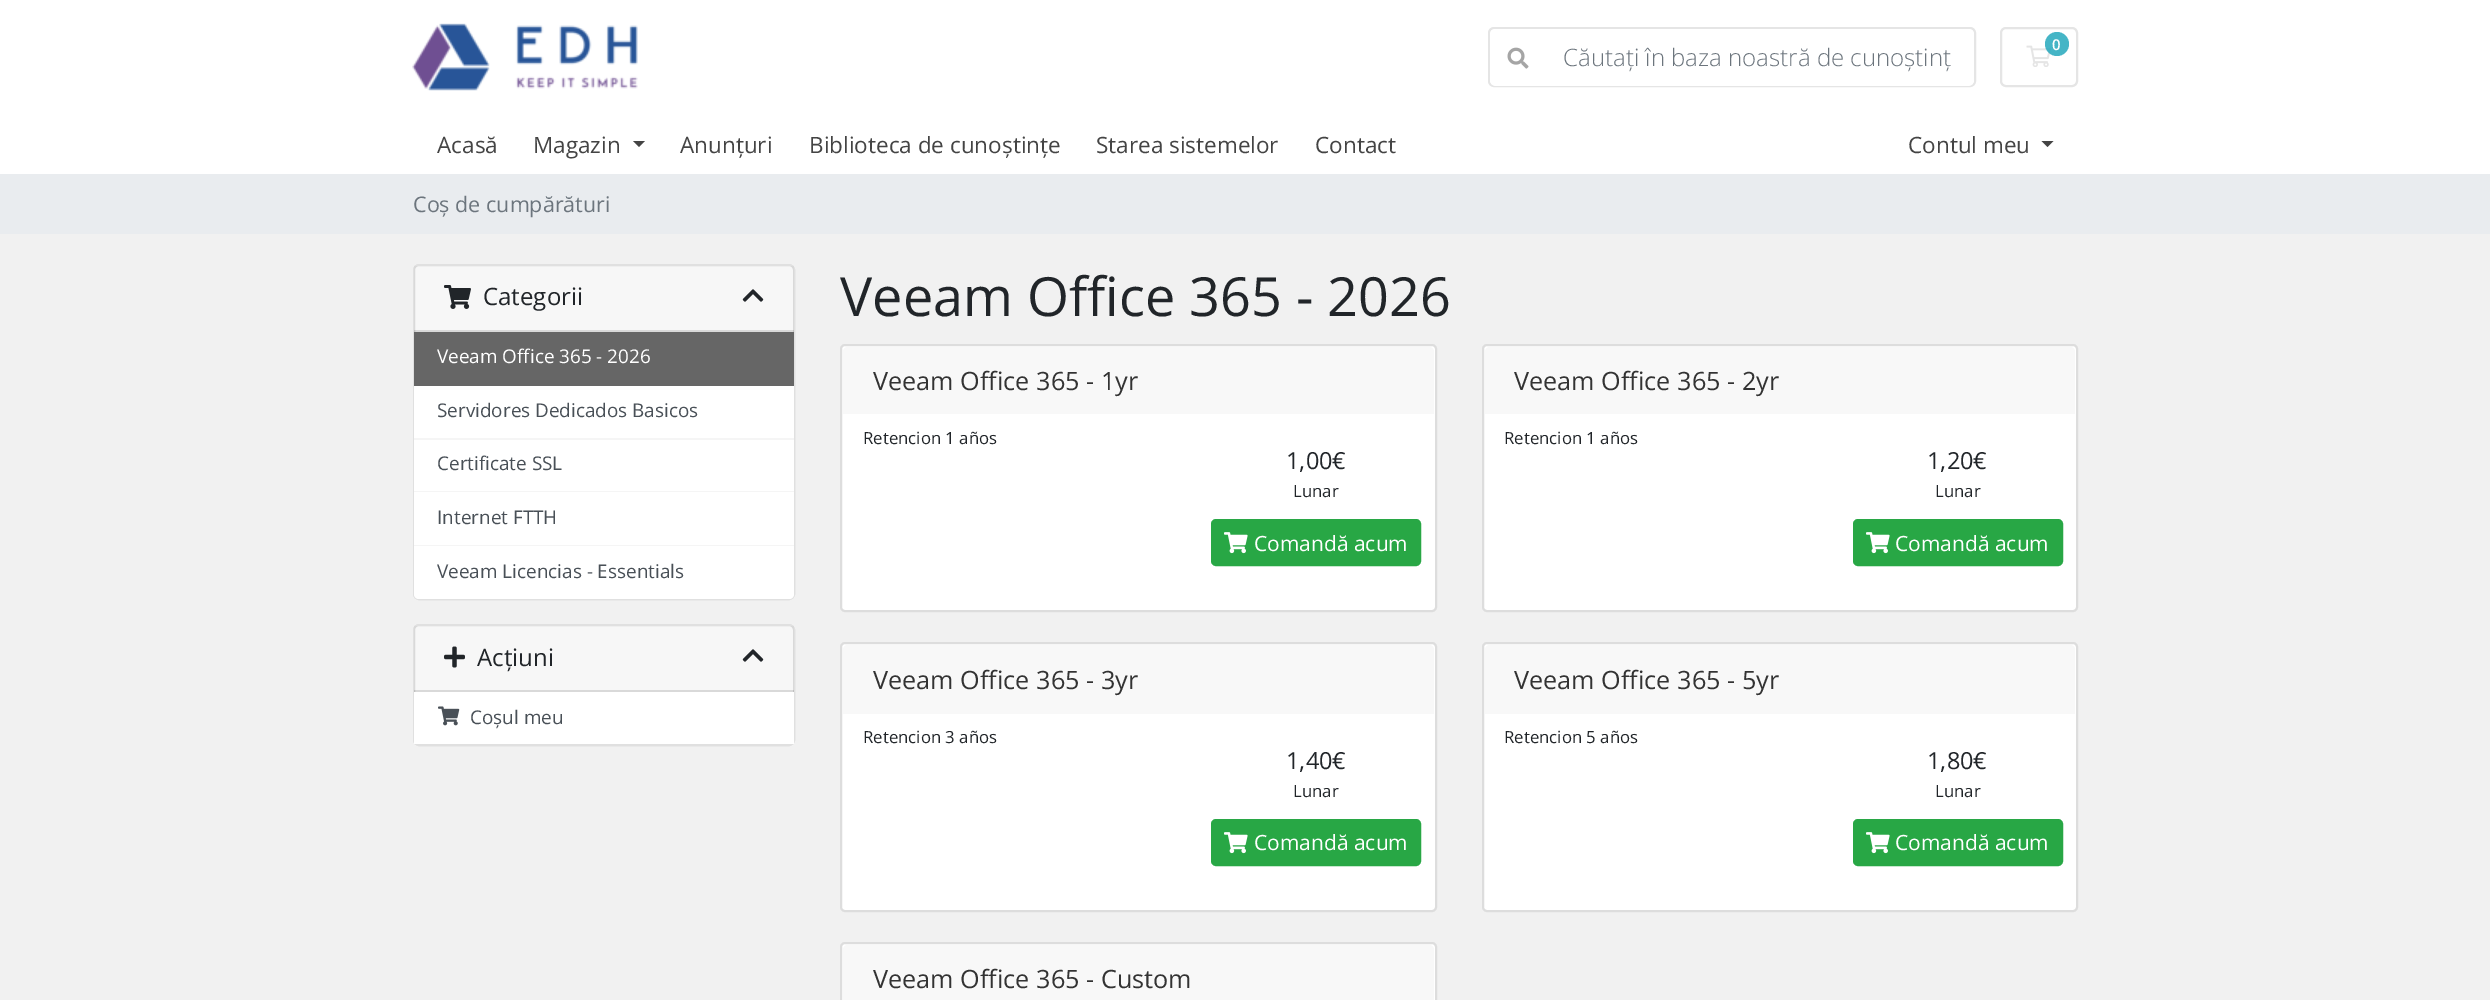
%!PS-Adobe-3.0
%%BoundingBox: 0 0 2490 1000
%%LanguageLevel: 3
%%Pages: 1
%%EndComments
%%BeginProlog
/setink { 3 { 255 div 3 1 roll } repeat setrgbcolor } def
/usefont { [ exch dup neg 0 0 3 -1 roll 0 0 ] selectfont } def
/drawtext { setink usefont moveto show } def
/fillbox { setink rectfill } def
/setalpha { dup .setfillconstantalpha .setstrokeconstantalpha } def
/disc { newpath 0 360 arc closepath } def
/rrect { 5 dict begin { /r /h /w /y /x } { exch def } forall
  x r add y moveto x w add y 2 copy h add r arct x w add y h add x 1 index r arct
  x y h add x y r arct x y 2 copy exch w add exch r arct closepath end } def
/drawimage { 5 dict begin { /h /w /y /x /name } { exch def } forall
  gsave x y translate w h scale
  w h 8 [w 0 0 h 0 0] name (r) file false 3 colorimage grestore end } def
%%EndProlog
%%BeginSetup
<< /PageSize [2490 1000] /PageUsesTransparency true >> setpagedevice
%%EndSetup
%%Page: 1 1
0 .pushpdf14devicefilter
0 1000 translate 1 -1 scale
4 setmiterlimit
0 0 2490 1000 241 241 241 fillbox
0 0 2490 174 255 255 255 fillbox
(assets/img1.rgb) 412 23 226 68 drawimage
229 229 229 setink
2 setlinewidth
2001 28 76 58 5 rrect stroke
(assets/img2.rgb) 2026 45 25 22 drawimage
0.8 setalpha
23 162 184 setink
2057 44 12 disc fill
1 setalpha
(0) 2052 50 /OpenSans-SemiBold 15 255 255 255 drawtext
229 229 229 setink
1489 28 486 58 5 rrect stroke
255 255 255 setink
1545 29 moveto 1968 29 lineto 1971.5 29 1974 31.5 1974 35 curveto 1974 80 lineto 1974 83.5 1971.5 86 1968 86 curveto 1545 86 lineto closepath fill
1496 29 moveto 1547 29 lineto 1547 86 lineto 1496 86 lineto 1492.5 86 1490 83.5 1490 80 curveto 1490 35 lineto 1490 31.5 1492.5 29 1496 29 curveto closepath fill
(assets/img3.rgb) 1507 47 22 22 drawimage
(Căutați în baza noastră de cunoștinț) 1563 66 /OpenSans-Light 24 108 117 125 drawtext
(Acasă) 437 153 /OpenSans-Regular 22.5 68 68 68 drawtext
(Magazin) 533 153 /OpenSans-Regular 22.5 68 68 68 drawtext
633 141 moveto 645 141 lineto 639 147 lineto closepath fill
(Anunțuri) 680 153 /OpenSans-Regular 22.5 68 68 68 drawtext
(Biblioteca de cunoștințe) 809 153 /OpenSans-Regular 22.5 68 68 68 drawtext
(Starea sistemelor) 1096 153 /OpenSans-Regular 22.5 68 68 68 drawtext
(Contact) 1315 153 /OpenSans-Regular 22.5 68 68 68 drawtext
(Contul meu) 1908 153 /OpenSans-Regular 22.5 68 68 68 drawtext
2041.5 141 moveto 2053.5 141 lineto 2047.5 147 lineto closepath fill
0 174 2490 60 233 236 239 fillbox
(Coș de cumpărături) 413 212 /OpenSans-Regular 21.5 108 117 125 drawtext
255 255 255 setink
413 264 382 336 6 rrect fill
0.12 setalpha
0 0 0 setink
414 265 380 334 5 rrect stroke
0.03 setalpha
414 266 380 66 0 0 0 fillbox
0.12 setalpha
414 330 380 2 0 0 0 fillbox
1 setalpha
(assets/img4.rgb) 444 285 27 24 drawimage
(Categorii) 483 305 /OpenSans-Regular 24 33 37 41 drawtext
(assets/img5.rgb) 742 289 22 13 drawimage
414 332 380 54 102 102 102 fillbox
(Veeam Office 365 - 2026) 437 363 /OpenSans-Regular 18.9 255 255 255 drawtext
414 386 380 52 255 255 255 fillbox
414 438 380 2 245 245 245 fillbox
(Servidores Dedicados Basicos) 437 417 /OpenSans-Regular 18.9 73 80 87 drawtext
414 440 380 51 255 255 255 fillbox
414 491 380 1 245 245 245 fillbox
(Certificate SSL) 437 470 /OpenSans-Regular 18.9 73 80 87 drawtext
414 492 380 53 255 255 255 fillbox
414 545 380 1 245 245 245 fillbox
(Internet FTTH) 437 524 /OpenSans-Regular 18.9 73 80 87 drawtext
255 255 255 setink
414 546 moveto 794 546 lineto 794 594 lineto 794 597 792 599 789 599 curveto 419 599 lineto 416 599 414 597 414 594 curveto closepath fill
(Veeam Licencias - Essentials) 437 578 /OpenSans-Regular 18.9 73 80 87 drawtext
255 255 255 setink
413 624 382 122 6 rrect fill
0.12 setalpha
0 0 0 setink
414 625 380 120 5 rrect stroke
0.03 setalpha
414 626 380 66 0 0 0 fillbox
0.12 setalpha
414 690 380 2 0 0 0 fillbox
1 setalpha
(assets/img6.rgb) 444 646 21 22 drawimage
(Acțiuni) 477 666 /OpenSans-Regular 24 33 37 41 drawtext
(assets/img5.rgb) 742 649 22 13 drawimage
414 692 380 52 255 255 255 fillbox
(assets/img7.rgb) 438 706 22 20 drawimage
(Coșul meu) 470 724 /OpenSans-Regular 18.9 73 80 87 drawtext
(Veeam Office 365 - 2026) 840 316 /OpenSans-Regular 54 33 37 41 drawtext
255 255 255 setink
841 345 595 266 4 rrect gsave fill grestore
221 221 221 setink
stroke
248 248 248 setink
848 347 moveto 1429 347 lineto 1432 347 1434 349 1434 352 curveto 1434 414 lineto 843 414 lineto 843 352 lineto 843 349 845 347 848 347 curveto closepath fill
(Veeam Office 365 - 1yr) 873 390 /OpenSans-Regular 25.25 51 51 51 drawtext
(Retencion 1 años) 863 444 /OpenSans-Regular 16.75 33 37 41 drawtext
(1,00€) 1286 469 /OpenSans-Regular 23.5 33 37 41 drawtext
(Lunar) 1293 497 /OpenSans-Regular 16.75 33 37 41 drawtext
40 167 69 setink
1212 520 208 45 4 rrect gsave fill grestore
stroke
(assets/img8.rgb) 1224 532 24 22 drawimage
(Comandă acum) 1254 551 /OpenSans-Regular 21 255 255 255 drawtext
1483 345 594 266 4 rrect gsave fill grestore
221 221 221 setink
stroke
248 248 248 setink
1490 347 moveto 2070 347 lineto 2073 347 2075 349 2075 352 curveto 2075 414 lineto 1485 414 lineto 1485 352 lineto 1485 349 1487 347 1490 347 curveto closepath fill
(Veeam Office 365 - 2yr) 1514 390 /OpenSans-Regular 25.25 51 51 51 drawtext
(Retencion 1 años) 1504 444 /OpenSans-Regular 16.75 33 37 41 drawtext
(1,20€) 1927 469 /OpenSans-Regular 23.5 33 37 41 drawtext
(Lunar) 1935 497 /OpenSans-Regular 16.75 33 37 41 drawtext
40 167 69 setink
1854 520 208 45 4 rrect gsave fill grestore
stroke
(assets/img8.rgb) 1866 532 24 22 drawimage
(Comandă acum) 1895 551 /OpenSans-Regular 21 255 255 255 drawtext
841 643 595 268 4 rrect gsave fill grestore
221 221 221 setink
stroke
248 248 248 setink
848 645 moveto 1429 645 lineto 1432 645 1434 647 1434 650 curveto 1434 714 lineto 843 714 lineto 843 650 lineto 843 647 845 645 848 645 curveto closepath fill
(Veeam Office 365 - 3yr) 873 689 /OpenSans-Regular 25.25 51 51 51 drawtext
(Retencion 3 años) 863 743 /OpenSans-Regular 16.75 33 37 41 drawtext
(1,40€) 1286 769 /OpenSans-Regular 23.5 33 37 41 drawtext
(Lunar) 1293 797 /OpenSans-Regular 16.75 33 37 41 drawtext
40 167 69 setink
1212 820 208 45 4 rrect gsave fill grestore
stroke
(assets/img8.rgb) 1224 832 24 22 drawimage
(Comandă acum) 1254 850 /OpenSans-Regular 21 255 255 255 drawtext
1483 643 594 268 4 rrect gsave fill grestore
221 221 221 setink
stroke
248 248 248 setink
1490 645 moveto 2070 645 lineto 2073 645 2075 647 2075 650 curveto 2075 714 lineto 1485 714 lineto 1485 650 lineto 1485 647 1487 645 1490 645 curveto closepath fill
(Veeam Office 365 - 5yr) 1514 689 /OpenSans-Regular 25.25 51 51 51 drawtext
(Retencion 5 años) 1504 743 /OpenSans-Regular 16.75 33 37 41 drawtext
(1,80€) 1927 769 /OpenSans-Regular 23.5 33 37 41 drawtext
(Lunar) 1935 797 /OpenSans-Regular 16.75 33 37 41 drawtext
40 167 69 setink
1854 820 208 45 4 rrect gsave fill grestore
stroke
(assets/img8.rgb) 1866 832 24 22 drawimage
(Comandă acum) 1895 850 /OpenSans-Regular 21 255 255 255 drawtext
841 943 595 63 4 rrect gsave fill grestore
221 221 221 setink
stroke
248 248 248 setink
848 945 moveto 1429 945 lineto 1432 945 1434 947 1434 950 curveto 1434 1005 lineto 843 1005 lineto 843 950 lineto 843 947 845 945 848 945 curveto closepath fill
(Veeam Office 365 - Custom) 873 988 /OpenSans-Regular 25.25 51 51 51 drawtext
.poppdf14devicefilter showpage
%%EOF
